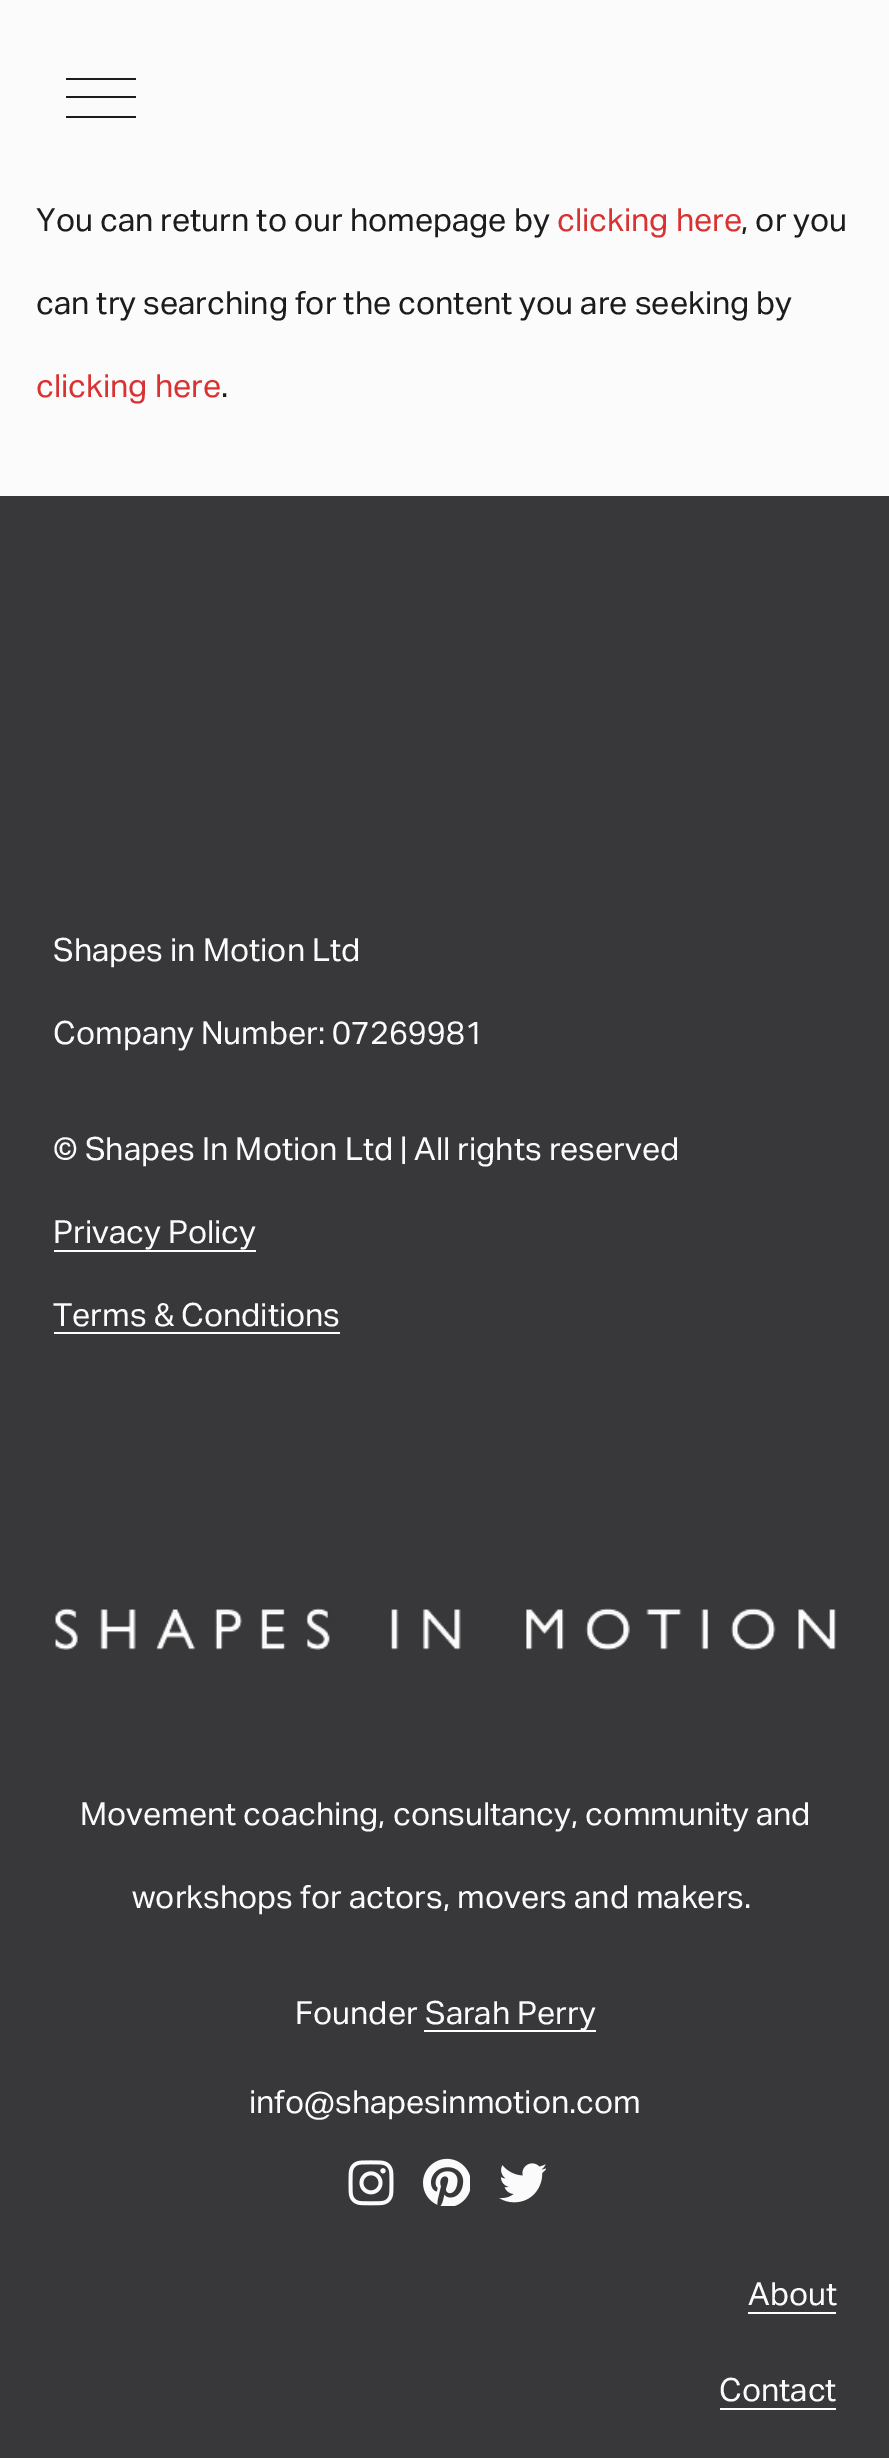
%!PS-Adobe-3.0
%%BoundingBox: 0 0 889 2458
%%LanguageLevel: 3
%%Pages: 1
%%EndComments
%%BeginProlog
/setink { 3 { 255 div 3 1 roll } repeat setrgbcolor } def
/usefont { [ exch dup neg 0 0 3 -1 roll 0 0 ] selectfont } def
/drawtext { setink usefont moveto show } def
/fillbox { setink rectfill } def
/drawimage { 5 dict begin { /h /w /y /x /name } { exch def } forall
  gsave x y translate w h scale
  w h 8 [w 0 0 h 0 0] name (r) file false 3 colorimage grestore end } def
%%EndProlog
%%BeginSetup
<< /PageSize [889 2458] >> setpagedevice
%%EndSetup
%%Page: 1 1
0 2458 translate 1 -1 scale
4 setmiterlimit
0 0 889 2458 251 251 251 fillbox
66 78 70 2 29 27 27 fillbox
66 96 70 2 29 27 27 fillbox
66 116 70 2 29 27 27 fillbox
(You can return to our homepage by) 36 231 /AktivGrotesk-Regular 32 29 27 27 drawtext
(clicking here) 557 231 /AktivGrotesk-Regular 32 217 50 50 drawtext
(, or you) 741 231 /AktivGrotesk-Regular 32 29 27 27 drawtext
(can try searching for the content you are seeking by) 36 314 /AktivGrotesk-Regular 32 29 27 27 drawtext
(clicking here) 36 397 /AktivGrotesk-Regular 32 217 50 50 drawtext
(.) 221 397 /AktivGrotesk-Regular 32 29 27 27 drawtext
0 496 889 1962 56 56 59 fillbox
(Shapes in Motion Ltd) 53 961 /AktivGrotesk-Regular 32 251 251 251 drawtext
(Company Number: 07269981) 53 1044 /AktivGrotesk-Regular 32 251 251 251 drawtext
(© Shapes In Motion Ltd | All rights reserved) 53 1160 /AktivGrotesk-Regular 32 251 251 251 drawtext
(Privacy Policy) 53 1243 /AktivGrotesk-Regular 32 251 251 251 drawtext
54 1250 202 2 255 255 255 fillbox
(Terms & Conditions) 53 1326 /AktivGrotesk-Regular 32 251 251 251 drawtext
54 1332 286 2 255 255 255 fillbox
(assets/img1.rgb) 55 1608 781 42 drawimage
(Movement coaching, consultancy, community and) 80 1825 /AktivGrotesk-Regular 32 251 251 251 drawtext
(workshops for actors, movers and makers.) 132 1908 /AktivGrotesk-Regular 32 251 251 251 drawtext
(Founder) 295 2024 /AktivGrotesk-Regular 32 251 251 251 drawtext
424 2030 172 2 255 255 255 fillbox
(Sarah Perry) 425 2024 /AktivGrotesk-Regular 32 251 251 251 drawtext
(info@shapesinmotion.com) 249 2113 /AktivGrotesk-Regular 32 251 251 251 drawtext
(assets/img2.rgb) 348 2160 46 46 drawimage
(assets/img3.rgb) 423 2158 47 48 drawimage
(assets/img4.rgb) 499 2163 47 40 drawimage
(About) 748 2305 /AktivGrotesk-Regular 32 251 251 251 drawtext
748 2312 88 2 255 255 255 fillbox
(Contact) 719 2401 /AktivGrotesk-Regular 32 251 251 251 drawtext
720 2408 116 2 255 255 255 fillbox
showpage
%%EOF
